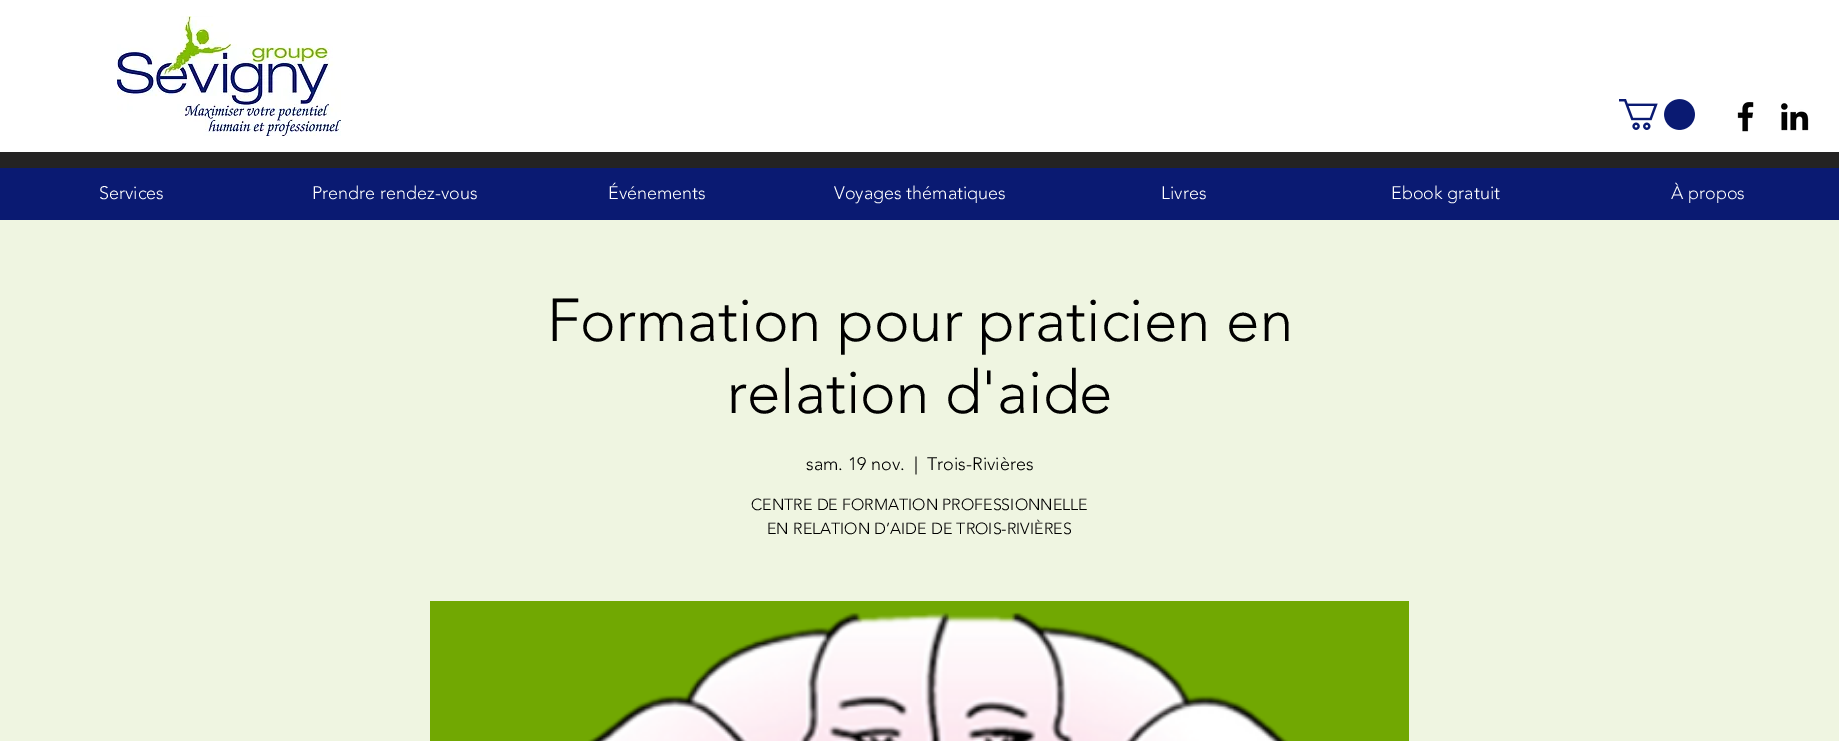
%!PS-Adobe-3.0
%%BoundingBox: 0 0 1839 741
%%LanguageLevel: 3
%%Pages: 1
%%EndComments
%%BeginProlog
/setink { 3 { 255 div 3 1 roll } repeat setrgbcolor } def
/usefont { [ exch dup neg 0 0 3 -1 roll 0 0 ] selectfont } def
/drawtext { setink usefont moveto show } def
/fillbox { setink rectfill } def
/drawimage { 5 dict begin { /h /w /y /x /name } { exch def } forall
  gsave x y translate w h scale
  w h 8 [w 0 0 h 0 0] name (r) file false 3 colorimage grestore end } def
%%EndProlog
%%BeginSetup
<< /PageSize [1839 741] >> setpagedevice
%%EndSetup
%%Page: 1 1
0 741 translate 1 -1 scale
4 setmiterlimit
0 0 1839 741 36 35 35 fillbox
0 0 1839 152 255 255 255 fillbox
(assets/img1.rgb) 117 16 224 120 drawimage
(assets/img2.rgb) 1619 99 76 31 drawimage
(assets/img3.rgb) 1737 102 17 30 drawimage
(assets/img4.rgb) 1780 103 29 28 drawimage
0 168 1839 52 10 26 114 fillbox
(Services) 99 199 /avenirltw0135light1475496-Light 18 255 255 255 drawtext
(Prendre rendez-vous) 312 199 /avenirltw0135light1475496-Light 18 255 255 255 drawtext
(Événements) 608 199 /avenirltw0135light1475496-Light 18 255 255 255 drawtext
(Voyages thématiques) 834 199 /avenirltw0135light1475496-Light 18 255 255 255 drawtext
(Livres) 1161 199 /avenirltw0135light1475496-Light 18 255 255 255 drawtext
(Ebook gratuit) 1391 199 /avenirltw0135light1475496-Light 18 255 255 255 drawtext
(À propos) 1671 199 /avenirltw0135light1475496-Light 18 255 255 255 drawtext
0 220 1839 521 239 245 225 fillbox
(Formation pour praticien en) 547 341 /avenirltw0135light1475496-Light 60 0 0 0 drawtext
(relation d'aide) 727 413 /avenirltw0135light1475496-Light 60 0 0 0 drawtext
(sam. 19 nov.) 806 470 /avenirltw0135light1475496-Light 18 0 0 0 drawtext
(|) 914 470 /avenirltw0135light1475496-Light 18 0 0 0 drawtext
(Trois-Rivières) 927 470 /avenirltw0135light1475496-Light 18 0 0 0 drawtext
(CENTRE DE FORMATION PROFESSIONNELLE) 751 510 /avenirltw0135light1475496-Light 16 0 0 0 drawtext
(EN RELATION D’AIDE DE TROIS-RIVIÈRES) 767 534 /avenirltw0135light1475496-Light 16 0 0 0 drawtext
430 601 979 140 113 168 2 fillbox
(assets/img5.rgb) 588 612 700 129 drawimage
showpage
%%EOF
